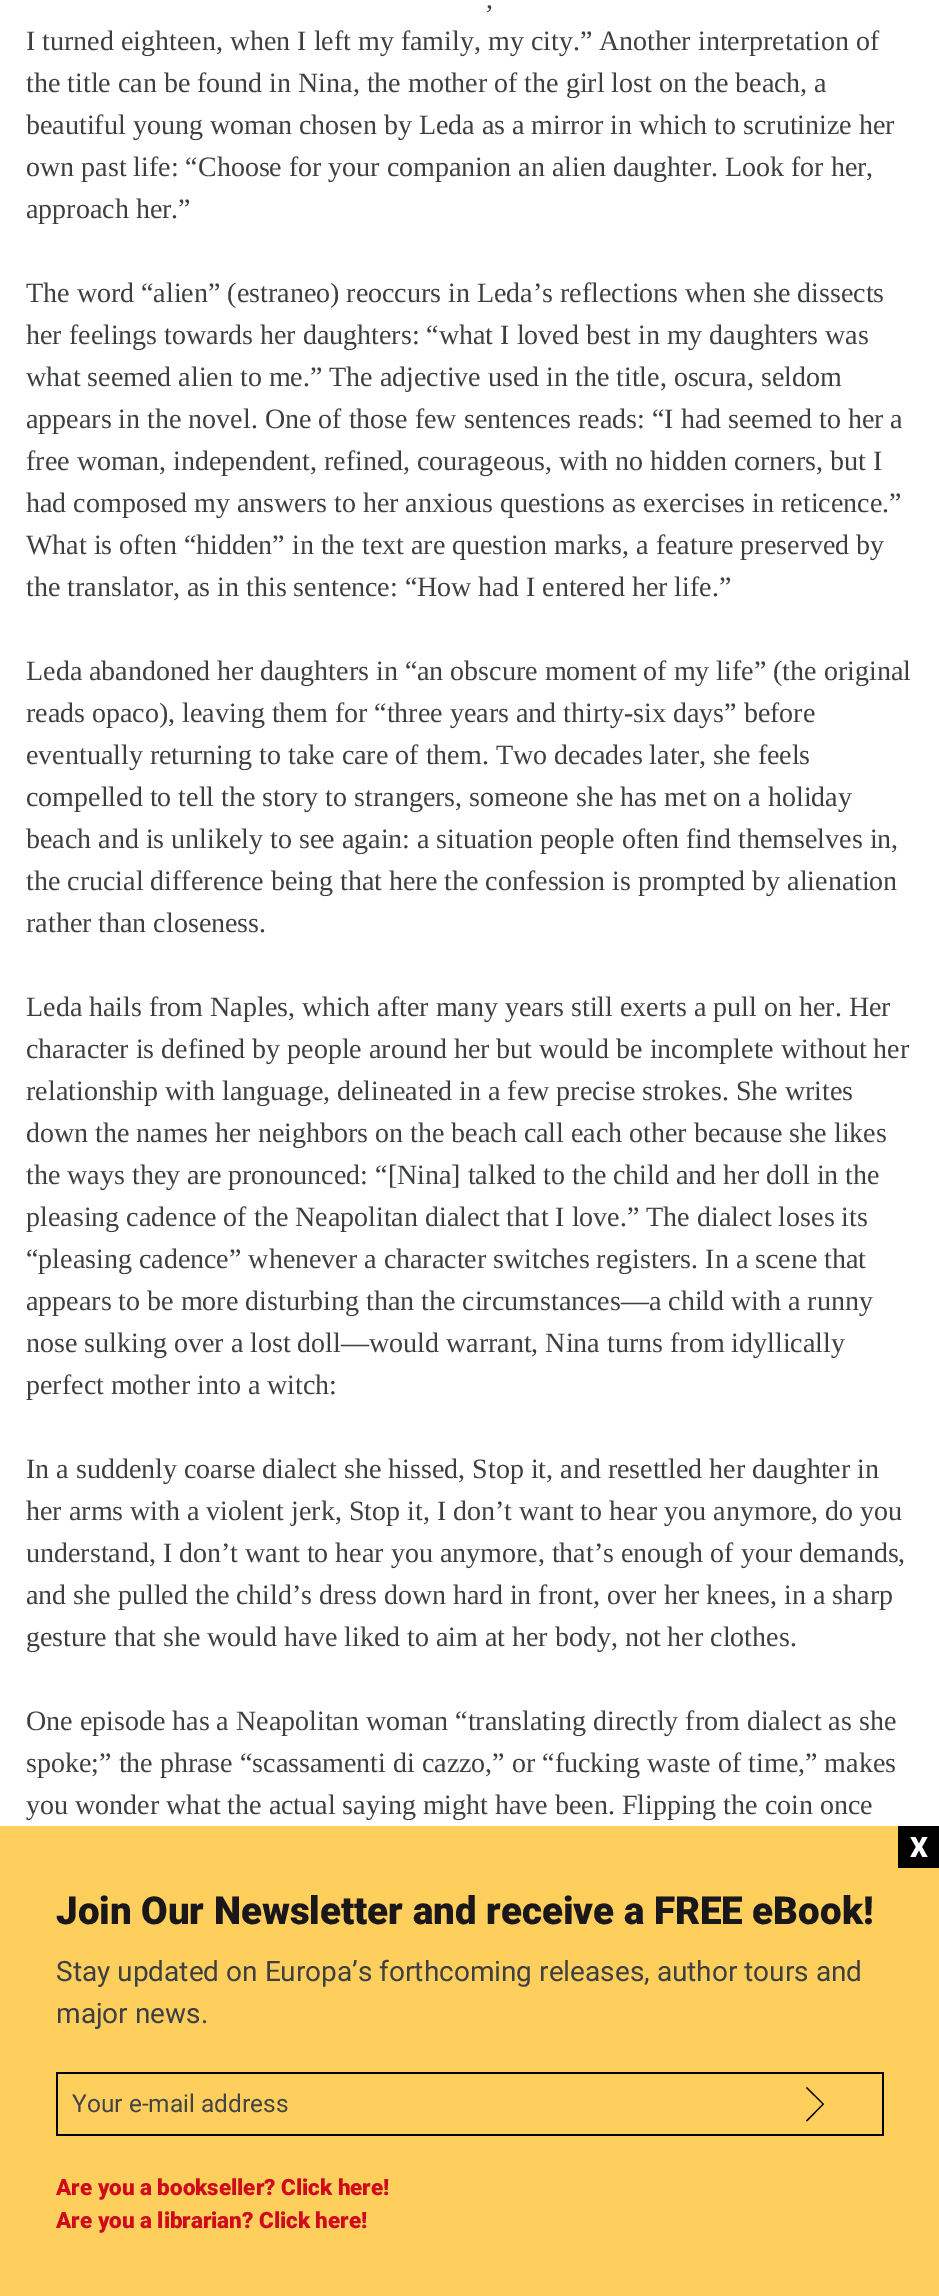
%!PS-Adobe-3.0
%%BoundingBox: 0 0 939 2296
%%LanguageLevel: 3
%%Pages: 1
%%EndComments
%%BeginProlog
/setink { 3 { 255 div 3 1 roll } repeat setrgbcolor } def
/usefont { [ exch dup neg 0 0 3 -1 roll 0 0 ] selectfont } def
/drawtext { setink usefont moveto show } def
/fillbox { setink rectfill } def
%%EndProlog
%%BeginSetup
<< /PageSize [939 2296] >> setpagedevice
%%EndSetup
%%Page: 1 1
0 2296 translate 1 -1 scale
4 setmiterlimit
0 0 939 2296 255 255 255 fillbox
(,) 486 8 /LiberationSerif-Regular 28 62 63 64 drawtext
(I turned eighteen, when I left my family, my city.” Another interpretation of) 26 50 /LiberationSerif-Regular 28 62 63 64 drawtext
(the title can be found in Nina, the mother of the girl lost on the beach, a) 26 92 /LiberationSerif-Regular 28 62 63 64 drawtext
(beautiful young woman chosen by Leda as a mirror in which to scrutinize her) 26 134 /LiberationSerif-Regular 28 62 63 64 drawtext
(own past life: “Choose for your companion an alien daughter. Look for her,) 26 176 /LiberationSerif-Regular 28 62 63 64 drawtext
(approach her.”) 26 218 /LiberationSerif-Regular 28 62 63 64 drawtext
(The word “alien” \(estraneo\) reoccurs in Leda’s reflections when she dissects) 26 302 /LiberationSerif-Regular 28 62 63 64 drawtext
(her feelings towards her daughters: “what I loved best in my daughters was) 26 344 /LiberationSerif-Regular 28 62 63 64 drawtext
(what seemed alien to me.” The adjective used in the title, oscura, seldom) 26 386 /LiberationSerif-Regular 28 62 63 64 drawtext
(appears in the novel. One of those few sentences reads: “I had seemed to her a) 26 428 /LiberationSerif-Regular 28 62 63 64 drawtext
(free woman, independent, refined, courageous, with no hidden corners, but I) 26 470 /LiberationSerif-Regular 28 62 63 64 drawtext
(had composed my answers to her anxious questions as exercises in reticence.”) 26 512 /LiberationSerif-Regular 28 62 63 64 drawtext
(What is often “hidden” in the text are question marks, a feature preserved by) 26 554 /LiberationSerif-Regular 28 62 63 64 drawtext
(the translator, as in this sentence: “How had I entered her life.”) 26 596 /LiberationSerif-Regular 28 62 63 64 drawtext
(Leda abandoned her daughters in “an obscure moment of my life” \(the original) 26 680 /LiberationSerif-Regular 28 62 63 64 drawtext
(reads opaco\), leaving them for “three years and thirty-six days” before) 26 722 /LiberationSerif-Regular 28 62 63 64 drawtext
(eventually returning to take care of them. Two decades later, she feels) 26 764 /LiberationSerif-Regular 28 62 63 64 drawtext
(compelled to tell the story to strangers, someone she has met on a holiday) 26 806 /LiberationSerif-Regular 28 62 63 64 drawtext
(beach and is unlikely to see again: a situation people often find themselves in,) 26 848 /LiberationSerif-Regular 28 62 63 64 drawtext
(the crucial difference being that here the confession is prompted by alienation) 26 890 /LiberationSerif-Regular 28 62 63 64 drawtext
(rather than closeness.) 26 932 /LiberationSerif-Regular 28 62 63 64 drawtext
(Leda hails from Naples, which after many years still exerts a pull on her. Her) 26 1016 /LiberationSerif-Regular 28 62 63 64 drawtext
(character is defined by people around her but would be incomplete without her) 26 1058 /LiberationSerif-Regular 28 62 63 64 drawtext
(relationship with language, delineated in a few precise strokes. She writes) 26 1100 /LiberationSerif-Regular 28 62 63 64 drawtext
(down the names her neighbors on the beach call each other because she likes) 26 1142 /LiberationSerif-Regular 28 62 63 64 drawtext
(the ways they are pronounced: “[Nina] talked to the child and her doll in the) 26 1184 /LiberationSerif-Regular 28 62 63 64 drawtext
(pleasing cadence of the Neapolitan dialect that I love.” The dialect loses its) 26 1226 /LiberationSerif-Regular 28 62 63 64 drawtext
(“pleasing cadence” whenever a character switches registers. In a scene that) 26 1268 /LiberationSerif-Regular 28 62 63 64 drawtext
(appears to be more disturbing than the circumstances—a child with a runny) 26 1310 /LiberationSerif-Regular 28 62 63 64 drawtext
(nose sulking over a lost doll—would warrant, Nina turns from idyllically) 26 1352 /LiberationSerif-Regular 28 62 63 64 drawtext
(perfect mother into a witch:) 26 1394 /LiberationSerif-Regular 28 62 63 64 drawtext
(In a suddenly coarse dialect she hissed, Stop it, and resettled her daughter in) 26 1478 /LiberationSerif-Regular 28 62 63 64 drawtext
(her arms with a violent jerk, Stop it, I don’t want to hear you anymore, do you) 26 1520 /LiberationSerif-Regular 28 62 63 64 drawtext
(understand, I don’t want to hear you anymore, that’s enough of your demands,) 26 1562 /LiberationSerif-Regular 28 62 63 64 drawtext
(and she pulled the child’s dress down hard in front, over her knees, in a sharp) 26 1604 /LiberationSerif-Regular 28 62 63 64 drawtext
(gesture that she would have liked to aim at her body, not her clothes.) 26 1646 /LiberationSerif-Regular 28 62 63 64 drawtext
(One episode has a Neapolitan woman “translating directly from dialect as she) 26 1730 /LiberationSerif-Regular 28 62 63 64 drawtext
(spoke;” the phrase “scassamenti di cazzo,” or “fucking waste of time,” makes) 26 1772 /LiberationSerif-Regular 28 62 63 64 drawtext
(you wonder what the actual saying might have been. Flipping the coin once) 26 1814 /LiberationSerif-Regular 28 62 63 64 drawtext
0 1826 939 470 254 207 93 fillbox
898 1826 41 42 0 0 0 fillbox
(X) 910 1857 /Roboto-Black 28 255 255 255 drawtext
(Join Our Newsletter and receive a FREE eBook!) 56 1924 /Roboto-Black 38.5 26 23 27 drawtext
(Stay updated on Europa’s forthcoming releases, author tours and) 56 1981 /Roboto-Regular 28 62 63 64 drawtext
(major news.) 56 2023 /Roboto-Regular 28 62 63 64 drawtext
56 2072 828 2 0 0 0 fillbox
56 2134 690 2 0 0 0 fillbox
56 2072 2 64 0 0 0 fillbox
(Your e-mail address) 72 2112 /Roboto-Regular 24.5 68 68 68 drawtext
882 2072 2 64 0 0 0 fillbox
746 2134 138 2 0 0 0 fillbox
806 2120.5 moveto 807 2121.5 lineto 824 2104 lineto 807 2087 lineto 806 2088 lineto 822.5 2104 lineto closepath fill
(Are you a bookseller? Click here!) 56 2195 /Roboto-Black 22.4 208 9 28 drawtext
(Are you a librarian? Click here!) 56 2228 /Roboto-Black 22.4 208 9 28 drawtext
showpage
%%EOF
